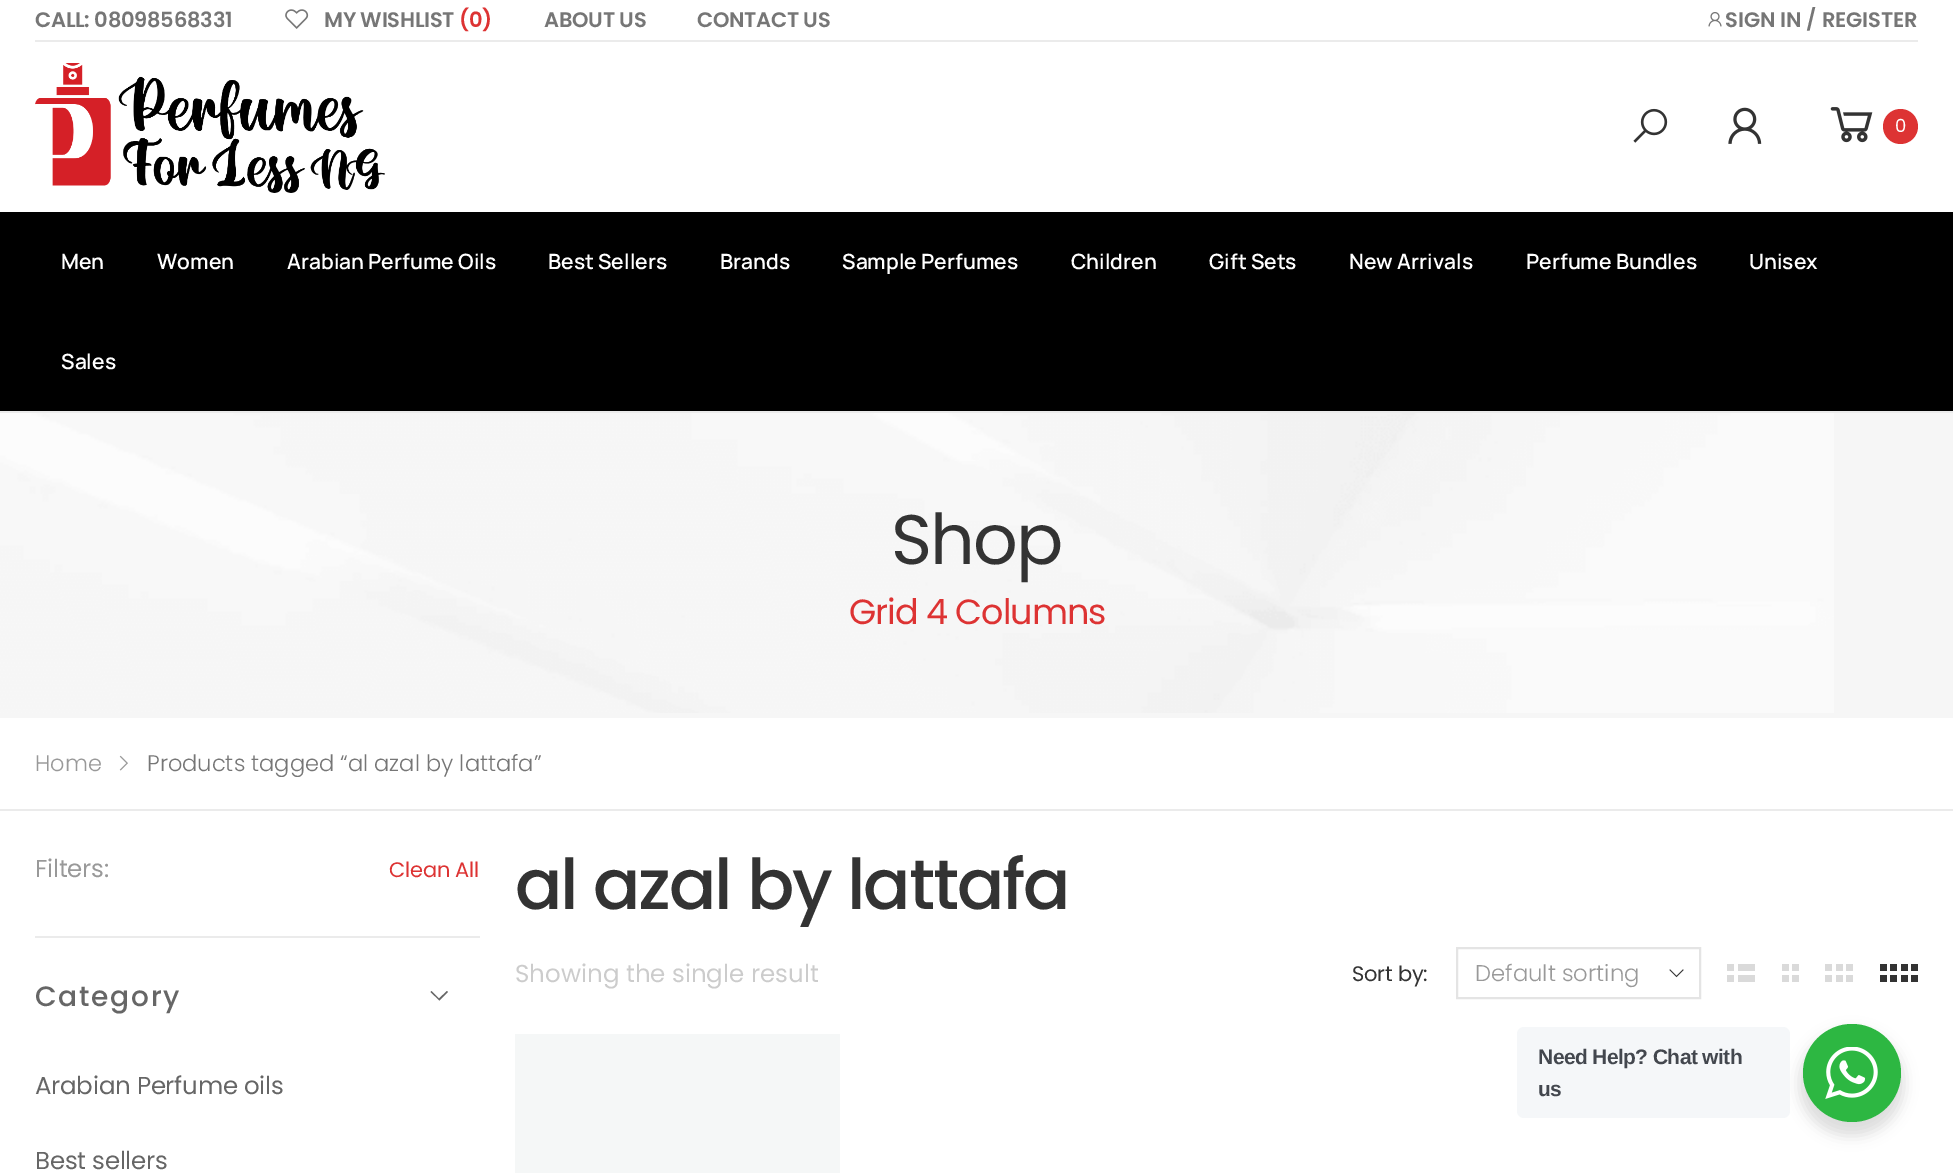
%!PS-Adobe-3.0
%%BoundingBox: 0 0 1953 1173
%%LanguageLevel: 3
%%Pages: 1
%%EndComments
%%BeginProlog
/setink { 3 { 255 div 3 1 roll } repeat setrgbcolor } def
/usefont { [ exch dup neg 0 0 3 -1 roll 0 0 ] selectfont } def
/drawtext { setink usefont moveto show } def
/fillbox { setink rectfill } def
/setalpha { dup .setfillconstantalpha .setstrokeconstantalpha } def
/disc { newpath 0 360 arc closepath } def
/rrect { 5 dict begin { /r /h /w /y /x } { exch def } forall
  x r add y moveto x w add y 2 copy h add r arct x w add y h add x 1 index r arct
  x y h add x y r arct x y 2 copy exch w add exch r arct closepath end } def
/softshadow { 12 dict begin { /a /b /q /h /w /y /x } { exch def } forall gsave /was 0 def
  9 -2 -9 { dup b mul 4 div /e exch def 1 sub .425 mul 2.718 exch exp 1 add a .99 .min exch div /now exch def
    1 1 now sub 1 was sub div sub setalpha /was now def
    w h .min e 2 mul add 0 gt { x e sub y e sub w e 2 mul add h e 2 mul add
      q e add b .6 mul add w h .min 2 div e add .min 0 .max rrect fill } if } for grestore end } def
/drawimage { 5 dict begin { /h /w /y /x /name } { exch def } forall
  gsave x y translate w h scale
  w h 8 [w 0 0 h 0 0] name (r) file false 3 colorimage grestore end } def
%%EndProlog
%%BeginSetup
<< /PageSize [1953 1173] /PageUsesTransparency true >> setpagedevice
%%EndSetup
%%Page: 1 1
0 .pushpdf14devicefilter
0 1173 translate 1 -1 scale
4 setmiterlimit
0 0 1953 1173 255 255 255 fillbox
35 40 1883 2 235 235 235 fillbox
/Poppins-SemiBold 21 usefont
118 118 118 setink
35 27 moveto -0.25 0 (CALL: 08098568331) ashow
(assets/img1.rgb) 285 9 24 20 drawimage
324 27 moveto -0.25 0 (MY WISHLIST) ashow
221 51 51 setink
459 27 moveto -0.25 0 (\(0\)) ashow
118 118 118 setink
544 27 moveto -0.25 0 (ABOUT US) ashow
697 27 moveto -0.25 0 (CONTACT US) ashow
(assets/img2.rgb) 1708 12 14 15 drawimage
(SIGN IN / REGISTER) 1725 27 /Poppins-SemiBold 21 118 118 118 drawtext
(assets/img3.rgb) 35 63 350 130 drawimage
(assets/img4.rgb) 1633 108 35 35 drawimage
(assets/img5.rgb) 1728 107 34 37 drawimage
(assets/img6.rgb) 1830 107 43 36 drawimage
221 51 51 setink
1900.5 126.5 17.5 disc fill
(0) 1895 132 /Poppins-Regular 18 255 255 255 drawtext
0 212 1953 199 0 0 0 fillbox
0 411 1953 2 235 235 235 fillbox
(Men) 61 269 /Manrope-SemiBold 21 255 255 255 drawtext
(Women) 157 269 /Manrope-SemiBold 21 255 255 255 drawtext
(Arabian Perfume Oils) 287 269 /Manrope-SemiBold 21 255 255 255 drawtext
(Best Sellers) 548 269 /Manrope-SemiBold 21 255 255 255 drawtext
(Brands) 720 269 /Manrope-SemiBold 21 255 255 255 drawtext
(Sample Perfumes) 842 269 /Manrope-SemiBold 21 255 255 255 drawtext
(Children) 1071 269 /Manrope-SemiBold 21 255 255 255 drawtext
(Gift Sets) 1209 269 /Manrope-SemiBold 21 255 255 255 drawtext
(New Arrivals) 1349 269 /Manrope-SemiBold 21 255 255 255 drawtext
(Perfume Bundles) 1526 269 /Manrope-SemiBold 21 255 255 255 drawtext
(Unisex) 1749 269 /Manrope-SemiBold 21 255 255 255 drawtext
(Sales) 61 369 /Manrope-SemiBold 21 255 255 255 drawtext
0 413 1953 305 246 246 246 fillbox
(assets/img7.rgb) 0 413 1834 300 drawimage
/Poppins-Regular 70 usefont
51 51 51 setink
891 564 moveto -2 0 (Shop) ashow
/Poppins-Regular 35 usefont
221 51 51 setink
849 624 moveto -1 0 (Grid 4 Columns) ashow
0 809 1953 2 235 235 235 fillbox
(Home) 35 771 /Poppins-Light 22.5 153 153 153 drawtext
(assets/img8.rgb) 119 755 9 16 drawimage
(Products tagged “al azal by lattafa”) 147 771 /Poppins-Light 22.5 118 118 118 drawtext
/Poppins-Regular 24.5 usefont
153 153 153 setink
35 877 moveto -0.25 0 (Filters:) ashow
/Poppins-Regular 21 usefont
221 51 51 setink
389 877 moveto -0.25 0 (Clean All) ashow
35 936 445 2 235 235 235 fillbox
/Poppins-Medium 28 usefont
102 102 102 setink
35 1006 moveto 1.75 0 (Category) ashow
431.5 991 moveto 439 998.5 lineto 447 991 lineto 448 992 lineto 439.5 1000.5 lineto 430.5 992 lineto closepath fill
/Poppins-Regular 24.5 usefont
35 1094 moveto -0.25 0 (Arabian Perfume oils) ashow
35 1169 moveto -0.25 0 (Best sellers) ashow
/Poppins-Medium 70 usefont
51 51 51 setink
515 909 moveto -2.1 0 (al azal by lattafa) ashow
(Showing the single result) 515 982 /Poppins-Regular 24.5 204 204 204 drawtext
/Poppins-Regular 21 usefont
51 51 51 setink
1352 981 moveto -0.25 0 (Sort by:) ashow
(assets/img9.rgb) 1669 969 15 9 drawimage
228 228 228 setink
2 setlinewidth
1457 948 243 50 rectstroke
(Default sorting) 1475 981 /Poppins-Light 22.75 153 153 153 drawtext
1727 964 7 7 218 218 218 fillbox
1738 964 17 7 218 218 218 fillbox
1727 975 7 7 218 218 218 fillbox
1738 975 17 7 218 218 218 fillbox
1782 964 7 7 218 218 218 fillbox
1792 964 7 7 218 218 218 fillbox
1782 975 7 7 218 218 218 fillbox
1792 975 7 7 218 218 218 fillbox
1825 964 7 7 218 218 218 fillbox
1836 964 7 7 218 218 218 fillbox
1846 964 7 7 218 218 218 fillbox
1825 975 7 7 218 218 218 fillbox
1836 975 7 7 218 218 218 fillbox
1846 975 7 7 218 218 218 fillbox
1880 964 7 7 51 51 51 fillbox
1890 964 7 7 51 51 51 fillbox
1901 964 7 7 51 51 51 fillbox
1911 964 7 7 51 51 51 fillbox
1880 975 7 7 51 51 51 fillbox
1890 975 7 7 51 51 51 fillbox
1901 975 7 7 51 51 51 fillbox
1911 975 7 7 51 51 51 fillbox
515 1034 325 139 245 247 247 fillbox
0 0 0 setink
1799 1031 105 105 52.5 7 0.14 softshadow
245 247 249 setink
1517 1027 273 91 7 rrect fill
/LiberationSans-Bold 21 usefont
67 71 78 setink
1538 1064 moveto -0.6 0 (Need Help? Chat with) ashow
1538 1096 moveto -0.6 0 (us) ashow
45 183 66 setink
1852 1073 49 disc fill
(assets/img10.rgb) 1825 1047 53 52 drawimage
.poppdf14devicefilter showpage
%%EOF
